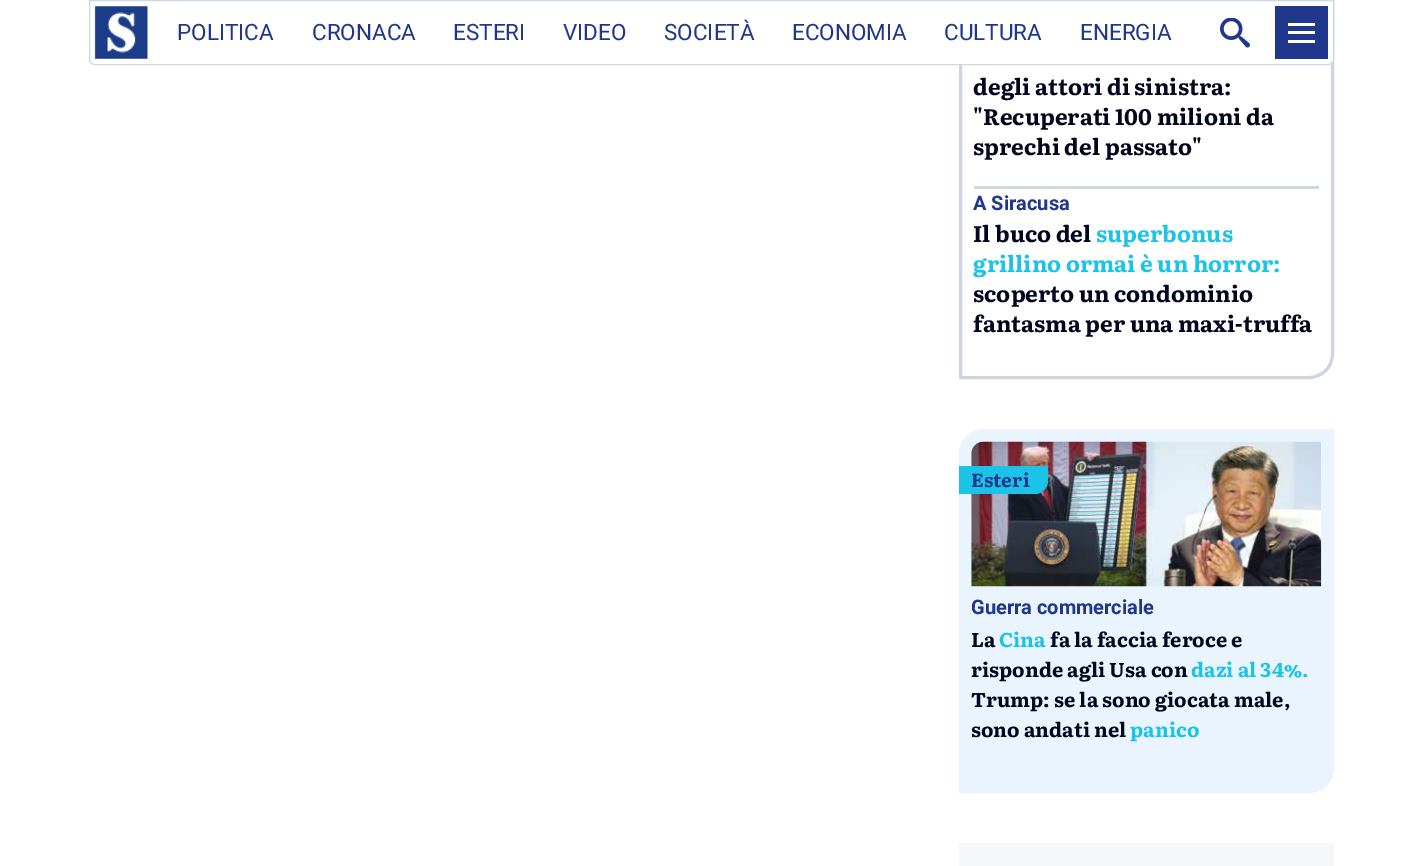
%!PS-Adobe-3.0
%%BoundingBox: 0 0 1421 866
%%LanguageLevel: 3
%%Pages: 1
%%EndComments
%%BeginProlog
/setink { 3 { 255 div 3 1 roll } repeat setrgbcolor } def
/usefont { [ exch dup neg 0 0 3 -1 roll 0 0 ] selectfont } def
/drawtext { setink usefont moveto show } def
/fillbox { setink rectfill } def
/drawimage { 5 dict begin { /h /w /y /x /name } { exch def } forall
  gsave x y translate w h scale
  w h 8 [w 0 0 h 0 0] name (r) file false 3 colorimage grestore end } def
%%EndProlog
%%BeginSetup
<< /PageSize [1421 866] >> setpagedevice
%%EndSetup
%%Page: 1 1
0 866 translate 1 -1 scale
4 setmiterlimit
0 0 1421 866 255 255 255 fillbox
204 214 224 setink
3 setlinewidth
984 -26.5 moveto 1332.5 -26.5 lineto 1332.5 354 lineto 1332.5 367 1322 377.5 1309 377.5 curveto 960.5 377.5 lineto 960.5 -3 lineto 960.5 -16 971 -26.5 984 -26.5 curveto closepath stroke
255 255 255 setink
89.5 0.5 moveto 1333.5 0.5 lineto 1333.5 59 lineto 1333.5 62 1331 64.5 1328 64.5 curveto 95 64.5 lineto 92 64.5 89.5 62 89.5 59 curveto closepath gsave fill grestore
204 217 227 setink
1 setlinewidth
stroke
(assets/img1.rgb) 94 6 54 53 drawimage
(POLITICA) 177 40 /Roboto-Regular 22.5 31 56 140 drawtext
(CRONACA) 312 40 /Roboto-Regular 22.5 31 56 140 drawtext
(ESTERI) 453 40 /Roboto-Regular 22.5 31 56 140 drawtext
(VIDEO) 563 40 /Roboto-Regular 22.5 31 56 140 drawtext
(SOCIETÀ) 664 40 /Roboto-Regular 22.5 31 56 140 drawtext
(ECONOMIA) 792 40 /Roboto-Regular 22.5 31 56 140 drawtext
(CULTURA) 944 40 /Roboto-Regular 22.5 31 56 140 drawtext
(ENERGIA) 1080 40 /Roboto-Regular 22.5 31 56 140 drawtext
(assets/img2.rgb) 1220 18 30 30 drawimage
1275 6 53 53 31 56 140 fillbox
1288 23 27 3 255 255 255 fillbox
1288 31 27 3 255 255 255 fillbox
1288 40 27 3 255 255 255 fillbox
974 186 345 3 204 217 227 fillbox
(degli attori di sinistra:) 973 95 /Literata-Bold 22.5 0 6 30 drawtext
("Recuperati 100 milioni da) 973 125 /Literata-Bold 22.5 0 6 30 drawtext
(sprechi del passato") 973 155 /Literata-Bold 22.5 0 6 30 drawtext
(A Siracusa) 973 210 /Roboto-Bold 20 31 56 140 drawtext
(Il buco del) 973 242 /Literata-Bold 22.5 0 6 30 drawtext
(superbonus) 1096 242 /Literata-Bold 22.5 28 195 232 drawtext
(grillino ormai è un horror:) 973 272 /Literata-Bold 22.5 28 195 232 drawtext
(scoperto un condominio) 973 302 /Literata-Bold 22.5 0 6 30 drawtext
(fantasma per una maxi-truffa) 973 332 /Literata-Bold 22.5 0 6 30 drawtext
234 244 255 setink
984 429 moveto 1334 429 lineto 1334 768 lineto 1334 782 1323 793 1309 793 curveto 959 793 lineto 959 454 lineto 959 440 970 429 984 429 curveto closepath fill
(assets/img3.rgb) 971 441 351 146 drawimage
28 195 232 setink
959 466 moveto 1048 466 lineto 1048 481 lineto 1048 488 1042 494 1035 494 curveto 959 494 lineto closepath fill
(Esteri) 971 487 /Literata-Bold 19 31 56 140 drawtext
(Guerra commerciale) 971 614 /Roboto-Bold 20 31 56 140 drawtext
(La) 971 647 /Literata-Bold 20 0 6 30 drawtext
(Cina) 999 647 /Literata-Bold 20 28 195 232 drawtext
(fa la faccia feroce e) 1050 647 /Literata-Bold 20 0 6 30 drawtext
(risponde agli Usa con) 971 677 /Literata-Bold 20 0 6 30 drawtext
(dazi al 34%.) 1191 677 /Literata-Bold 20 28 195 232 drawtext
(Trump: se la sono giocata male,) 971 707 /Literata-Bold 20 0 6 30 drawtext
(sono andati nel) 971 737 /Literata-Bold 20 0 6 30 drawtext
(panico) 1130 737 /Literata-Bold 20 28 195 232 drawtext
959 843 375 23 245 247 249 fillbox
showpage
%%EOF
